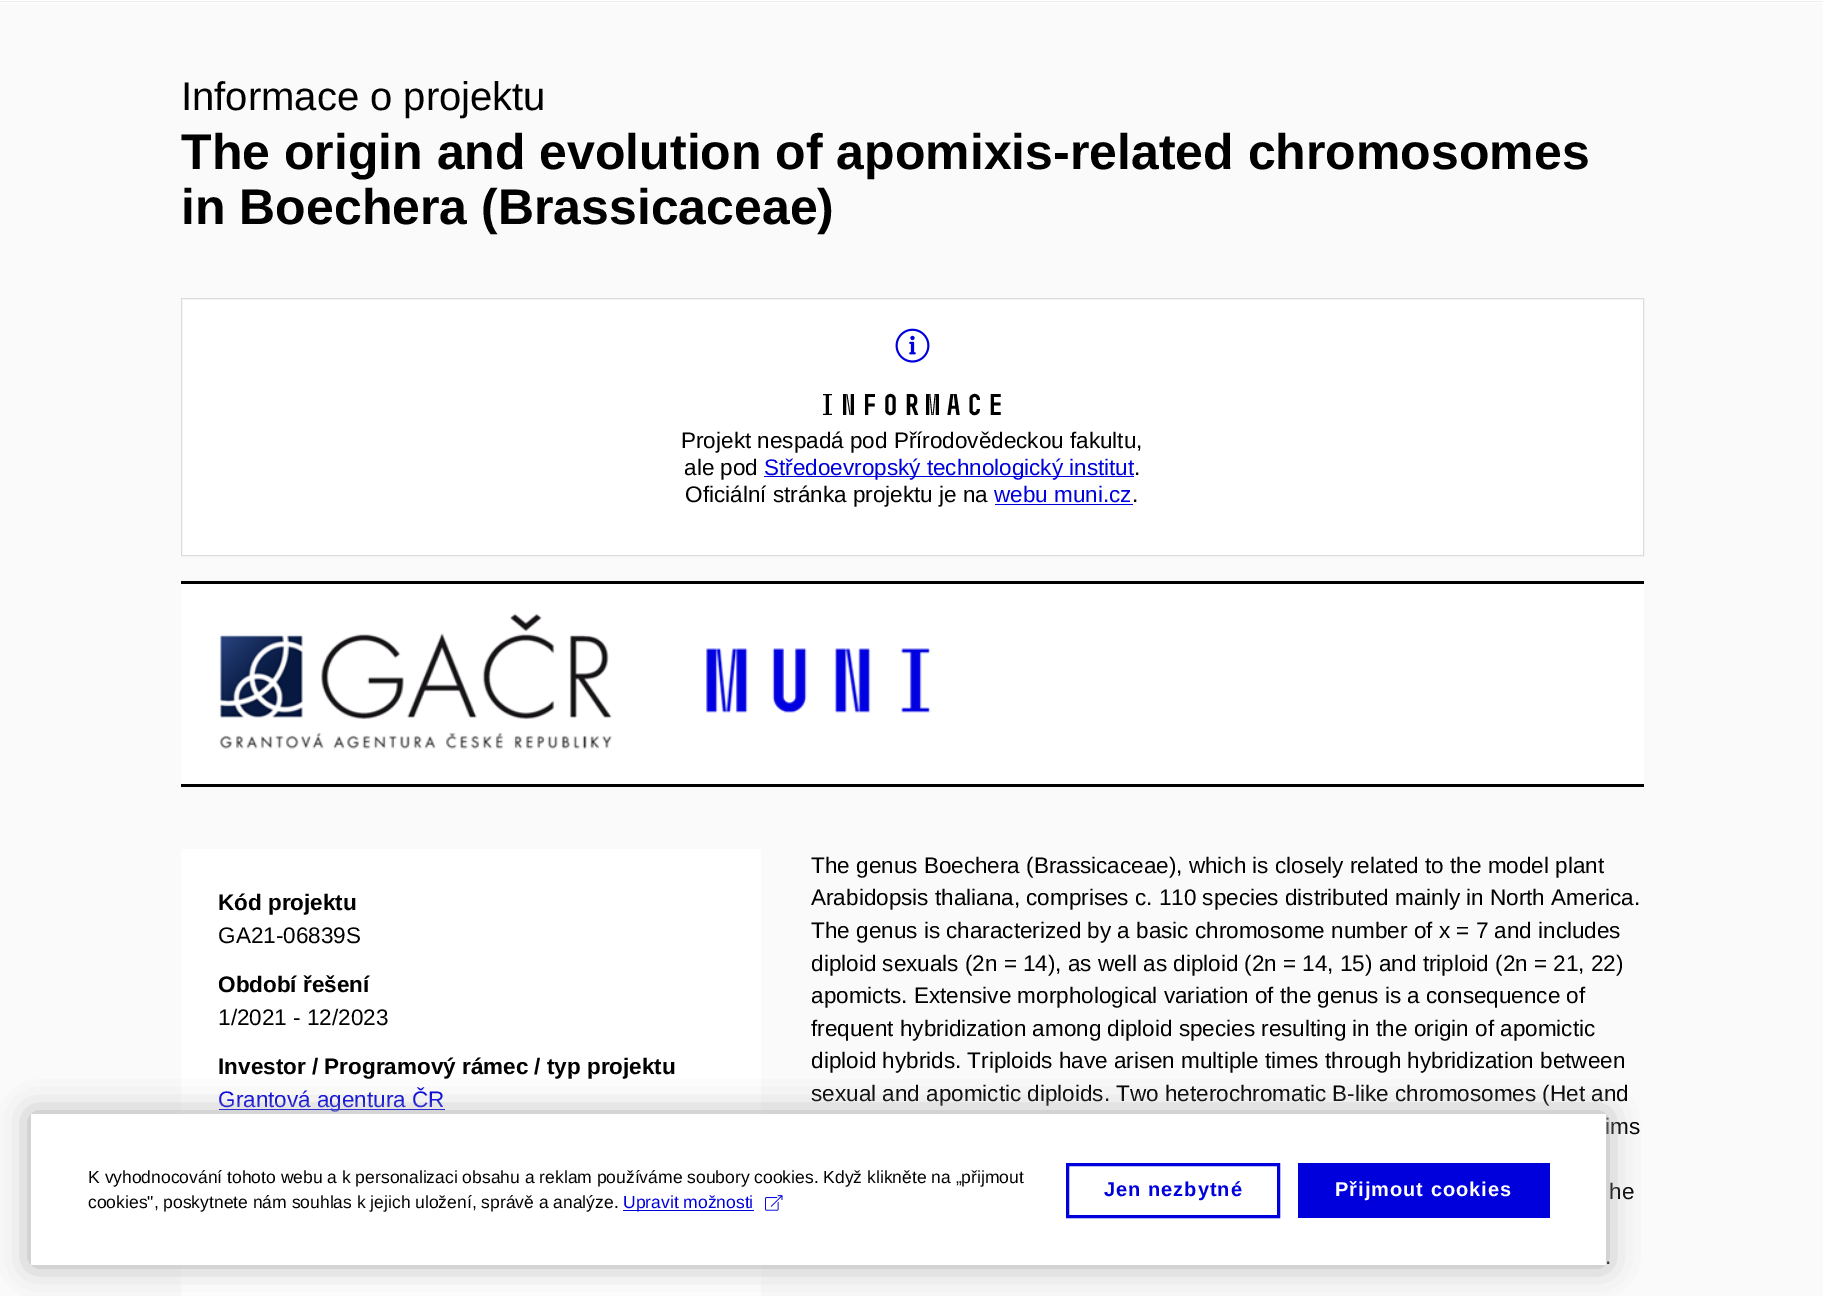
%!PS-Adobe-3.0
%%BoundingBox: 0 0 1823 1296
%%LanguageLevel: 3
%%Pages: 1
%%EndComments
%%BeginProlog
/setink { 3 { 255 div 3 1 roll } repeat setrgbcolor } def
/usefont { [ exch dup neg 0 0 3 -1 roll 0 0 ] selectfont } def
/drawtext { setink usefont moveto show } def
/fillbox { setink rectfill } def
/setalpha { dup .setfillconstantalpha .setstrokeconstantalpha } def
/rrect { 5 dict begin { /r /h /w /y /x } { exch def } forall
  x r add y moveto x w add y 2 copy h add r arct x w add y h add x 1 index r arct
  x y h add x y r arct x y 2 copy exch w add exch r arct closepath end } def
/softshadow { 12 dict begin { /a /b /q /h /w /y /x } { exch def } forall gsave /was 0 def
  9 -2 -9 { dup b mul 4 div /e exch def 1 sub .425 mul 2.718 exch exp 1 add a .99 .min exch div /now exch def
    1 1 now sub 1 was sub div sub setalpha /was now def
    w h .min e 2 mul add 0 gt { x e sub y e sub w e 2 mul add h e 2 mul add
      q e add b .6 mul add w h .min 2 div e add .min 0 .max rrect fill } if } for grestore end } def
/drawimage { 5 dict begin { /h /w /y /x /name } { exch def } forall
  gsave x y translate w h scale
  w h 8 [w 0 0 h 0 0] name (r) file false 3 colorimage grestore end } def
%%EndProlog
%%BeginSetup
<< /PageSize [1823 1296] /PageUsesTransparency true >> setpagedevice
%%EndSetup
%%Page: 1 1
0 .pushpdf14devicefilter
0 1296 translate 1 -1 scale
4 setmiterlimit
0 0 1823 1296 250 250 250 fillbox
0 0 1823 3 255 255 255 fillbox
0 1 1823 1 237 237 237 fillbox
(Informace o projektu) 181 110 /LiberationSans-Regular 40 0 0 0 drawtext
(The origin and evolution of apomixis-related chromosomes) 181 169 /LiberationSans-Bold 50 0 0 0 drawtext
(in Boechera \(Brassicaceae\)) 181 224 /LiberationSans-Bold 50 0 0 0 drawtext
255 255 255 setink
181.5 298.5 moveto 1643.5 298.5 lineto 1643.5 555.5 lineto 181.5 555.5 lineto closepath gsave fill grestore
220 220 220 setink
stroke
(assets/img1.rgb) 895 328 35 35 drawimage
(Informace) 817 415 /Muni-Bold 30 0 0 0 drawtext
(Projekt nespadá pod Přírodovědeckou fakultu,) 681 448 /LiberationSans-Regular 22.5 0 0 0 drawtext
(ale pod) 684 475 /LiberationSans-Regular 22.5 0 0 0 drawtext
764 476 370 1 0 0 220 fillbox
(Středoevropský technologický institut) 764 475 /LiberationSans-Regular 22.5 0 0 220 drawtext
(.) 1134 475 /LiberationSans-Regular 22.5 0 0 0 drawtext
(Oficiální stránka projektu je na) 685 502 /LiberationSans-Regular 22.5 0 0 0 drawtext
(webu muni.cz) 994 502 /LiberationSans-Regular 22.5 0 0 220 drawtext
995 504 138 1 0 0 220 fillbox
(.) 1132 502 /LiberationSans-Regular 22.5 0 0 0 drawtext
181 581 1463 3 0 0 0 fillbox
181 784 1463 3 0 0 0 fillbox
181 584 1463 200 255 255 255 fillbox
(assets/img2.rgb) 219 613 712 136 drawimage
181 849 580 447 255 255 255 fillbox
(Kód projektu) 218 910 /LiberationSans-Bold 22.5 0 0 0 drawtext
(GA21-06839S) 218 943 /LiberationSans-Regular 22.5 0 0 0 drawtext
(Období řešení) 218 992 /LiberationSans-Bold 22.5 0 0 0 drawtext
(1/2021 - 12/2023) 218 1025 /LiberationSans-Regular 22.5 0 0 0 drawtext
(Investor / Programový rámec / typ projektu) 218 1074 /LiberationSans-Bold 22.5 0 0 0 drawtext
219 1109 226 1 0 0 220 fillbox
(Grantová agentura ČR) 218 1107 /LiberationSans-Regular 22.5 0 0 220 drawtext
(The genus Boechera \(Brassicaceae\), which is closely related to the model plant) 811 873 /LiberationSans-Regular 22.5 0 0 0 drawtext
(Arabidopsis thaliana, comprises c. 110 species distributed mainly in North America.) 811 905 /LiberationSans-Regular 22.5 0 0 0 drawtext
(The genus is characterized by a basic chromosome number of x = 7 and includes) 811 938 /LiberationSans-Regular 22.5 0 0 0 drawtext
(diploid sexuals \(2n = 14\), as well as diploid \(2n = 14, 15\) and triploid \(2n = 21, 22\)) 811 971 /LiberationSans-Regular 22.5 0 0 0 drawtext
(apomicts. Extensive morphological variation of the genus is a consequence of) 811 1003 /LiberationSans-Regular 22.5 0 0 0 drawtext
(frequent hybridization among diploid species resulting in the origin of apomictic) 811 1036 /LiberationSans-Regular 22.5 0 0 0 drawtext
(diploid hybrids. Triploids have arisen multiple times through hybridization between) 811 1068 /LiberationSans-Regular 22.5 0 0 0 drawtext
(sexual and apomictic diploids. Two heterochromatic B-like chromosomes \(Het and) 811 1101 /LiberationSans-Regular 22.5 0 0 0 drawtext
(ims) 1605 1134 /LiberationSans-Regular 22.5 0 0 0 drawtext
(he) 1609 1199 /LiberationSans-Regular 22.5 0 0 0 drawtext
(.) 1605 1264 /LiberationSans-Regular 22.5 0 0 0 drawtext
170 170 170 setink
31 1114 1575 151 0 15.5 1 softshadow
31 1114 1575 151 255 255 255 fillbox
(K vyhodnocování tohoto webu a k personalizaci obsahu a reklam používáme soubory cookies. Když klikněte na „přijmout) 88 1183 /LiberationSans-Regular 17.5 0 0 0 drawtext
(cookies", poskytnete nám souhlas k jejich uložení, správě a analýze.) 88 1208 /LiberationSans-Regular 17.5 0 0 0 drawtext
623 1210 131 1 0 0 220 fillbox
(Upravit možnosti) 623 1208 /LiberationSans-Regular 17.5 0 0 220 drawtext
(assets/img3.rgb) 765 1195 18 16 drawimage
3 setlinewidth
1067.5 1164.5 211 52 rectstroke
/LiberationSans-Bold 20 usefont
1104 1196 moveto 1 0 (Jen nezbytné) ashow
1298 1163 252 55 0 0 220 fillbox
255 255 255 setink
1335 1196 moveto 1 0 (Přijmout cookies) ashow
.poppdf14devicefilter showpage
%%EOF
